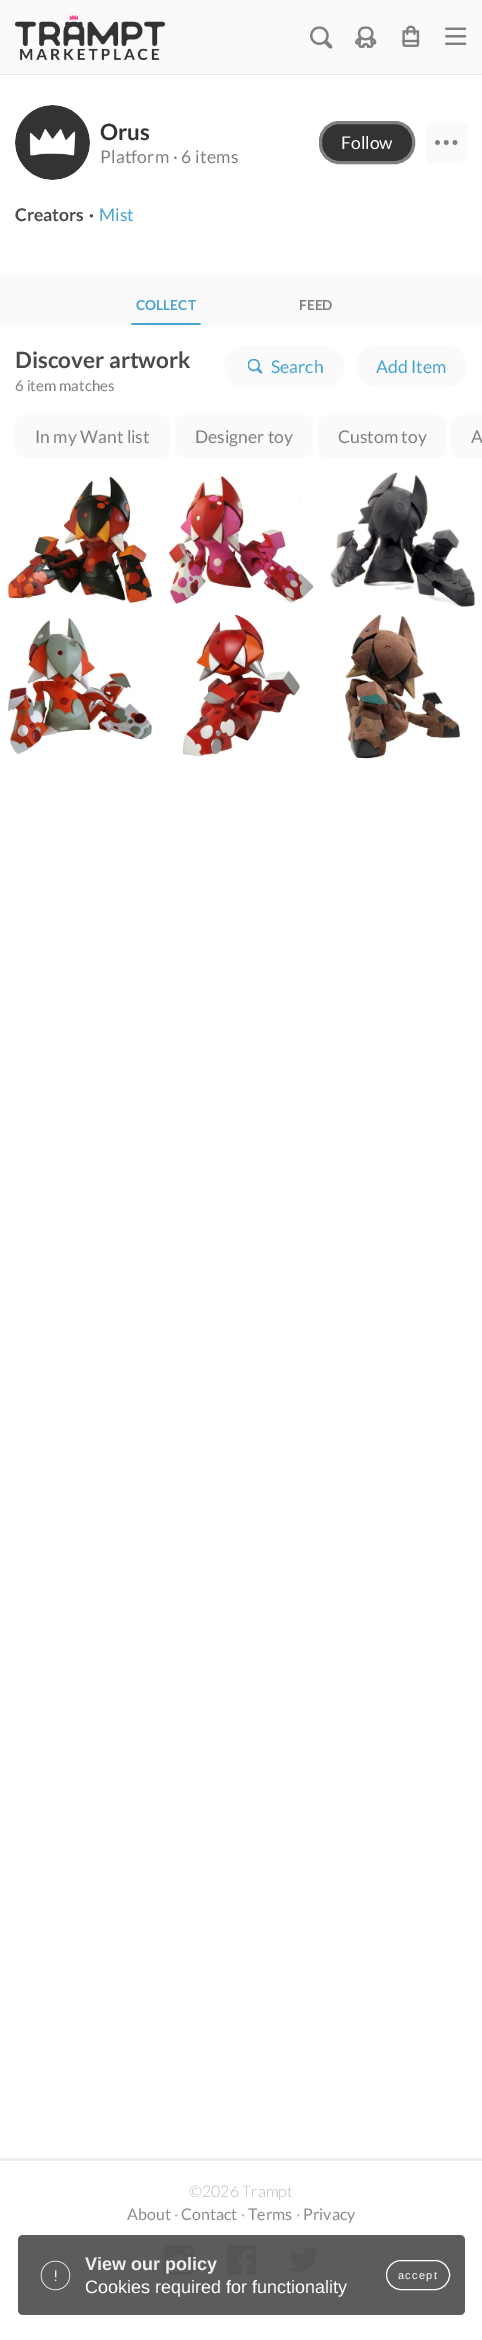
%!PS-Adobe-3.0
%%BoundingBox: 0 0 482 2340
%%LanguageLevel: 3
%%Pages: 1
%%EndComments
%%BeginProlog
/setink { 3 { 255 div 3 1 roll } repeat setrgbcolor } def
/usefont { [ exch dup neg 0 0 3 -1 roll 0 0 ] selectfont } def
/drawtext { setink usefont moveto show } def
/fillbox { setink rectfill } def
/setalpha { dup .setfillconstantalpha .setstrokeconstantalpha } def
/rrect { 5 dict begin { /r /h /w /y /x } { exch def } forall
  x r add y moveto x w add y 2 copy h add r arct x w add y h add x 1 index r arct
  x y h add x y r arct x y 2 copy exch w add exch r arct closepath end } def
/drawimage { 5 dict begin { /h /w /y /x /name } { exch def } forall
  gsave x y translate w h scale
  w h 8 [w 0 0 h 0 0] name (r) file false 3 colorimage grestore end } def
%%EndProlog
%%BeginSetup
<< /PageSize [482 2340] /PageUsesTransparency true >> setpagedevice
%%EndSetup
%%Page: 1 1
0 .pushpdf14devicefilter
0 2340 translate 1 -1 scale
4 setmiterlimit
0 0 482 2340 255 255 255 fillbox
0 0 482 74 250 250 250 fillbox
0 74 482 1 229 229 229 fillbox
(assets/img1.rgb) 15 15 150 45 drawimage
(assets/img2.rgb) 310 26 23 23 drawimage
(assets/img3.rgb) 355 26 22 22 drawimage
(assets/img4.rgb) 402 25 18 22 drawimage
(assets/img5.rgb) 445 27 22 18 drawimage
(assets/img6.rgb) 15 105 75 75 drawimage
(Orus) 100 140 /Lato-Bold 22.5 51 51 51 drawtext
/Lato-Regular 17.5 usefont
128 128 128 setink
100 163 moveto 0.2 0 (Platform · 6 items) ashow
51 51 51 setink
320.5 122.5 93 40 18.5 rrect gsave fill grestore
128 128 128 setink
3 setlinewidth
stroke
(Follow) 341 149 /Lato-Regular 17.5 255 255 255 drawtext
250 250 250 setink
425 121 43 43 10 rrect fill
(assets/img7.rgb) 435 140 23 5 drawimage
(Creators) 15 221 /Lato-Bold 17.5 74 74 74 drawtext
(·) 89 221 /Lato-Bold 17.5 74 74 74 drawtext
(Mist) 99 221 /Lato-Regular 17.5 71 163 209 drawtext
0 275 482 50 250 250 250 fillbox
(COLLECT) 136 310 /Lato-Bold 13.75 71 163 209 drawtext
133.5 323 moveto 198.5 323 lineto 200 323 201 324 201 325.5 curveto 201 326 lineto 131 326 lineto 131 325.5 lineto 131 324 132 323 133.5 323 curveto closepath fill
(FEED) 299 310 /Lato-Bold 13.75 128 128 128 drawtext
131 325 70 1 255 255 255 fillbox
(Discover artwork) 15 368 /Lato-Bold 22.5 74 74 74 drawtext
(6 item matches) 15 391 /Lato-Regular 15 128 128 128 drawtext
250 250 250 setink
223.5 345.5 121 42 19.5 rrect gsave fill grestore
255 255 255 setink
1 setlinewidth
stroke
(assets/img8.rgb) 248 359 15 15 drawimage
(Search) 271 373 /Lato-Regular 17.5 71 163 209 drawtext
250 250 250 setink
355.5 345.5 112 42 19.5 rrect gsave fill grestore
255 255 255 setink
stroke
(Add Item) 376 373 /Lato-Regular 17.5 71 163 209 drawtext
250 250 250 setink
15 415 155 43 10 rrect fill
(In my Want list) 35 443 /Lato-Regular 17.5 128 128 128 drawtext
250 250 250 setink
175 415 138 43 10 rrect fill
(Designer toy) 195 443 /Lato-Regular 17.5 128 128 128 drawtext
250 250 250 setink
318 415 128 43 10 rrect fill
(Custom toy) 338 443 /Lato-Regular 17.5 128 128 128 drawtext
250 250 250 setink
461 415 moveto 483 415 lineto 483 458 lineto 461 458 lineto 455.5 458 451 453.5 451 448 curveto 451 425 lineto 451 419.5 455.5 415 461 415 curveto closepath fill
(A) 471 443 /Lato-Regular 17.5 128 128 128 drawtext
(assets/img9.rgb) 7 476 145 128 drawimage
(assets/img10.rgb) 169 475 145 129 drawimage
(assets/img11.rgb) 330 472 145 135 drawimage
(assets/img12.rgb) 8 618 144 137 drawimage
(assets/img13.rgb) 182 614 119 143 drawimage
(assets/img14.rgb) 345 614 115 145 drawimage
0 2158 482 3 238 238 238 fillbox
(©2026 Trampt) 189 2197 /Lato-Light 16 184 184 184 drawtext
(About) 127 2220 /Lato-Regular 16 139 139 139 drawtext
(·) 174 2220 /Lato-Regular 16 184 184 184 drawtext
(Contact) 181 2220 /Lato-Regular 16 139 139 139 drawtext
(·) 241 2220 /Lato-Regular 16 184 184 184 drawtext
(Terms) 248 2220 /Lato-Regular 16 139 139 139 drawtext
(·) 296 2220 /Lato-Regular 16 184 184 184 drawtext
(Privacy) 303 2220 /Lato-Regular 16 139 139 139 drawtext
(assets/img15.rgb) 163 2245 31 30 drawimage
(assets/img16.rgb) 226 2245 31 30 drawimage
(assets/img17.rgb) 289 2247 30 25 drawimage
0.9 setalpha
74 74 74 setink
18 2235 447 80 5 rrect fill
1 setalpha
(assets/img18.rgb) 40 2260 31 31 drawimage
(View our policy) 85 2270 /LiberationSans-Bold 18 239 239 239 drawtext
(Cookies required for functionality) 85 2293 /LiberationSans-Regular 18 255 255 255 drawtext
386.5 2260.5 63 29 14.5 rrect stroke
/LiberationSans-Regular 11 usefont
398 2279 moveto 1.25 0 (accept) ashow
.poppdf14devicefilter showpage
%%EOF
